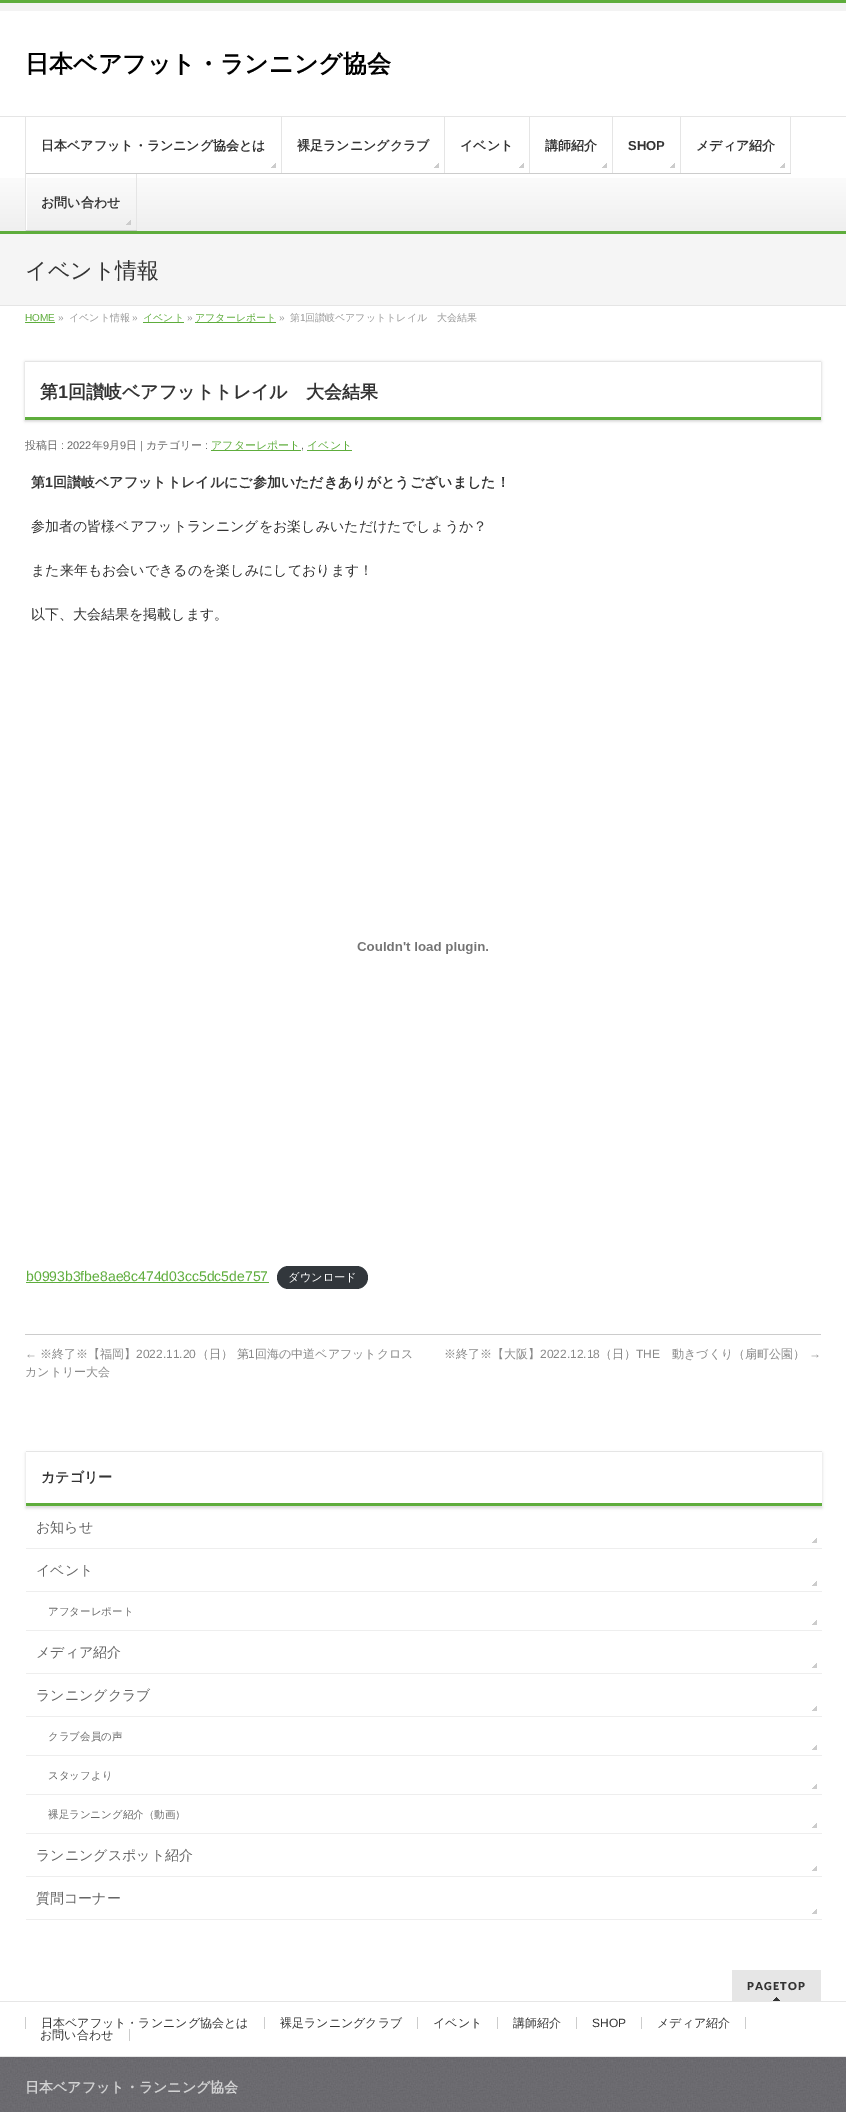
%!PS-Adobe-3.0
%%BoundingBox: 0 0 846 2112
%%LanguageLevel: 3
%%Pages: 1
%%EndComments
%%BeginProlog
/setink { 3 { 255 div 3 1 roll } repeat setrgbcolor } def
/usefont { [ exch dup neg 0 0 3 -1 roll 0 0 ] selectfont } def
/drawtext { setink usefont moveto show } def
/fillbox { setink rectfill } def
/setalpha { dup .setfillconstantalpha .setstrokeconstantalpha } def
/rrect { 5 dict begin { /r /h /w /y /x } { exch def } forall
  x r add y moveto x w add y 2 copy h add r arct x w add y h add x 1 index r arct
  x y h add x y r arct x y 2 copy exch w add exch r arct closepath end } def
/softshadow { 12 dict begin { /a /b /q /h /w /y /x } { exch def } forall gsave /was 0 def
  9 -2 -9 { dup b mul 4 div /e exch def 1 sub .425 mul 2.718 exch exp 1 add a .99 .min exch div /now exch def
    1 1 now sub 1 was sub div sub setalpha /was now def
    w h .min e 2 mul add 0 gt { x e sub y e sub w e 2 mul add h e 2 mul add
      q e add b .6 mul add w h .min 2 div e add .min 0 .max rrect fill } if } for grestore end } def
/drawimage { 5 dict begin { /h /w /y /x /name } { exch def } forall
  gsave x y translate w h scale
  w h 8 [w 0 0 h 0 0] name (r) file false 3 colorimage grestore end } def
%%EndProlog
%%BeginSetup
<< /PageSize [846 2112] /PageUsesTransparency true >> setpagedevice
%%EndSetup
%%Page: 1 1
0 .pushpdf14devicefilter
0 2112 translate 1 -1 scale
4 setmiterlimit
0 0 846 2112 255 255 255 fillbox
0 3 846 8 243 243 243 fillbox
0 0 846 3 94 173 60 fillbox
(日本ベアフット・ランニング協会) 25 72 /WenQuanYiZenHei-Bold 24 0 0 0 drawtext
(assets/img1.rgb) 0 178 846 53 drawimage
0 116 846 1 229 229 229 fillbox
0 231 846 3 94 173 60 fillbox
25 117 1 114 229 229 229 fillbox
(assets/img2.rgb) 271 163 5 5 drawimage
281 117 1 57 229 229 229 fillbox
26 173 256 1 204 204 204 fillbox
(日本ベアフット・ランニング協会とは) 41 150 /WenQuanYiZenHei-Bold 13 51 51 51 drawtext
(assets/img2.rgb) 434 163 5 5 drawimage
444 117 1 57 229 229 229 fillbox
282 173 163 1 204 204 204 fillbox
(裸足ランニングクラブ) 297 150 /WenQuanYiZenHei-Bold 13 51 51 51 drawtext
(assets/img2.rgb) 519 163 5 5 drawimage
529 117 1 57 229 229 229 fillbox
445 173 85 1 204 204 204 fillbox
(イベント) 460 150 /WenQuanYiZenHei-Bold 13 51 51 51 drawtext
(assets/img2.rgb) 602 163 5 5 drawimage
612 117 1 57 229 229 229 fillbox
530 173 83 1 204 204 204 fillbox
(講師紹介) 545 150 /WenQuanYiZenHei-Bold 13 51 51 51 drawtext
(assets/img2.rgb) 670 163 5 5 drawimage
680 117 1 57 229 229 229 fillbox
613 173 68 1 204 204 204 fillbox
(SHOP) 628 150 /LiberationSans-Bold 13 51 51 51 drawtext
(assets/img2.rgb) 780 163 5 5 drawimage
790 117 1 57 229 229 229 fillbox
681 173 110 1 204 204 204 fillbox
(メディア紹介) 696 150 /WenQuanYiZenHei-Bold 13 51 51 51 drawtext
26 174 1 57 255 255 255 fillbox
(assets/img3.rgb) 126 220 5 5 drawimage
136 174 1 57 229 229 229 fillbox
26 230 111 1 204 204 204 fillbox
(お問い合わせ) 41 207 /WenQuanYiZenHei-Bold 13 51 51 51 drawtext
0 234 846 71 245 245 245 fillbox
0 305 846 1 229 229 229 fillbox
(イベント情報) 25 278 /WenQuanYiZenHei-Medium 22 51 51 51 drawtext
(HOME) 25 321 /LiberationSans-Regular 10 94 173 60 drawtext
25 322 30 1 94 173 60 fillbox
(») 58 321 /LiberationSans-Regular 10 153 153 153 drawtext
(イベント情報) 69 321 /WenQuanYiZenHei-Medium 10 153 153 153 drawtext
(») 132 321 /LiberationSans-Regular 10 153 153 153 drawtext
143 322 41 1 94 173 60 fillbox
(イベント) 143 321 /WenQuanYiZenHei-Medium 10 94 173 60 drawtext
(») 187 321 /LiberationSans-Regular 10 153 153 153 drawtext
195 322 81 1 94 173 60 fillbox
(アフターレポート) 195 321 /WenQuanYiZenHei-Medium 10 94 173 60 drawtext
(») 279 321 /LiberationSans-Regular 10 153 153 153 drawtext
(第) 290 321 /WenQuanYiZenHei-Medium 10 153 153 153 drawtext
(1) 300 321 /LiberationSans-Regular 10 153 153 153 drawtext
(回讃岐ベアフットトレイル　大会結果) 305 321 /WenQuanYiZenHei-Medium 10 153 153 153 drawtext
gsave
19 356 moveto 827 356 lineto 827 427 lineto 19 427 lineto closepath 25 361 moveto 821 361 lineto 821 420 lineto 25 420 lineto closepath eoclip newpath
0 0 0 setink
25 362 796 59 0 1.5 0.2 softshadow
grestore
25 361 796 1 229 229 229 fillbox
25 417 796 3 94 173 60 fillbox
(第) 40 398 /WenQuanYiZenHei-Bold 18 51 51 51 drawtext
(1) 58 398 /LiberationSans-Bold 18 51 51 51 drawtext
(回讃岐ベアフットトレイル　大会結果) 68 398 /WenQuanYiZenHei-Bold 18 51 51 51 drawtext
(投稿日) 25 449 /WenQuanYiZenHei-Medium 11 102 102 102 drawtext
(: 2022) 61 449 /LiberationSans-Regular 11 102 102 102 drawtext
(年) 92 449 /WenQuanYiZenHei-Medium 11 102 102 102 drawtext
(9) 103 449 /LiberationSans-Regular 11 102 102 102 drawtext
(月) 109 449 /WenQuanYiZenHei-Medium 11 102 102 102 drawtext
(9) 120 449 /LiberationSans-Regular 11 102 102 102 drawtext
(日) 126 449 /WenQuanYiZenHei-Medium 11 102 102 102 drawtext
(|) 140 449 /LiberationSans-Regular 11 102 102 102 drawtext
(カテゴリー) 146 449 /WenQuanYiZenHei-Medium 11 102 102 102 drawtext
(:) 205 449 /LiberationSans-Regular 11 102 102 102 drawtext
211 450 90 1 94 173 60 fillbox
(アフターレポート) 211 449 /WenQuanYiZenHei-Medium 11 94 173 60 drawtext
(,) 301 449 /LiberationSans-Regular 11 102 102 102 drawtext
307 450 45 1 94 173 60 fillbox
(イベント) 307 449 /WenQuanYiZenHei-Medium 11 94 173 60 drawtext
(第) 31 487 /WenQuanYiZenHei-Bold 14 51 51 51 drawtext
(1) 45 487 /LiberationSans-Bold 14 51 51 51 drawtext
(回讃岐ベアフットトレイルにご参加いただきありがとうございました！) 53 487 /WenQuanYiZenHei-Bold 14 51 51 51 drawtext
(参加者の皆様ベアフットランニングをお楽しみいただけたでしょうか？) 31 531 /WenQuanYiZenHei-Medium 14 51 51 51 drawtext
(また来年もお会いできるのを楽しみにしております！) 31 575 /WenQuanYiZenHei-Medium 14 51 51 51 drawtext
(以下、大会結果を掲載します。) 31 619 /WenQuanYiZenHei-Medium 14 51 51 51 drawtext
(assets/img4.rgb) 357 942 131 12 drawimage
(b0993b3fbe8ae8c474d03cc5dc5de757) 26 1281 /LiberationSans-Regular 14 94 173 60 drawtext
26 1282 243 1 94 173 60 fillbox
50 55 60 setink
277 1266 91 23 11.5 rrect fill
(ダウンロード) 288 1281 /WenQuanYiZenHei-Medium 11.25 255 255 255 drawtext
25 1334 796 1 204 204 204 fillbox
(←) 25 1358 /LiberationSans-Regular 12 136 136 136 drawtext
(※終了※【福岡】) 40 1358 /WenQuanYiZenHei-Medium 12 136 136 136 drawtext
(2022.11.20) 136 1358 /LiberationSans-Regular 12 136 136 136 drawtext
(（日） 第) 197 1358 /WenQuanYiZenHei-Medium 12 136 136 136 drawtext
(1) 248 1358 /LiberationSans-Regular 12 136 136 136 drawtext
(回海の中道ベアフットクロス) 255 1358 /WenQuanYiZenHei-Medium 12 136 136 136 drawtext
(カントリー大会) 25 1376 /WenQuanYiZenHei-Medium 12 136 136 136 drawtext
(※終了※【大阪】) 444 1358 /WenQuanYiZenHei-Medium 12 136 136 136 drawtext
(2022.12.18) 540 1358 /LiberationSans-Regular 12 136 136 136 drawtext
(（日）) 600 1358 /WenQuanYiZenHei-Medium 12 136 136 136 drawtext
(THE) 636 1358 /LiberationSans-Regular 12 136 136 136 drawtext
(動きづくり（扇町公園）) 672 1358 /WenQuanYiZenHei-Medium 12 136 136 136 drawtext
(→) 809 1358 /LiberationSans-Regular 12 136 136 136 drawtext
gsave
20 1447 moveto 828 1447 lineto 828 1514 lineto 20 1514 lineto closepath 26 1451 moveto 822 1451 lineto 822 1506 lineto 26 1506 lineto closepath eoclip newpath
0 0 0 setink
26 1453 796 55 0 1.5 0.15 softshadow
grestore
26 1451 796 1 229 229 229 fillbox
26 1503 796 3 94 173 60 fillbox
(カテゴリー) 41 1482 /WenQuanYiZenHei-Bold 14 51 51 51 drawtext
26 1548 796 1 238 238 238 fillbox
(assets/img2.rgb) 812 1538 5 5 drawimage
(お知らせ) 36 1532 /WenQuanYiZenHei-Medium 14 102 102 102 drawtext
26 1630 796 1 238 238 238 fillbox
(assets/img2.rgb) 812 1581 5 5 drawimage
(イベント) 36 1575 /WenQuanYiZenHei-Medium 14 102 102 102 drawtext
26 1591 796 1 238 238 238 fillbox
(assets/img2.rgb) 812 1620 5 5 drawimage
(アフターレポート) 48 1615 /WenQuanYiZenHei-Medium 10.5 102 102 102 drawtext
26 1673 796 1 238 238 238 fillbox
(assets/img2.rgb) 812 1663 5 5 drawimage
(メディア紹介) 36 1657 /WenQuanYiZenHei-Medium 14 102 102 102 drawtext
26 1833 796 1 238 238 238 fillbox
(assets/img2.rgb) 812 1706 5 5 drawimage
(ランニングクラブ) 36 1700 /WenQuanYiZenHei-Medium 14 102 102 102 drawtext
26 1716 796 1 238 238 238 fillbox
(assets/img2.rgb) 812 1745 5 5 drawimage
(クラブ会員の声) 48 1740 /WenQuanYiZenHei-Medium 10.5 102 102 102 drawtext
26 1755 796 1 238 238 238 fillbox
(assets/img2.rgb) 812 1784 5 5 drawimage
(スタッフより) 48 1779 /WenQuanYiZenHei-Medium 10.5 102 102 102 drawtext
26 1794 796 1 238 238 238 fillbox
(assets/img2.rgb) 812 1823 5 5 drawimage
(裸足ランニング紹介（動画）) 48 1818 /WenQuanYiZenHei-Medium 10.5 102 102 102 drawtext
26 1876 796 1 238 238 238 fillbox
(assets/img2.rgb) 812 1866 5 5 drawimage
(ランニングスポット紹介) 36 1860 /WenQuanYiZenHei-Medium 14 102 102 102 drawtext
26 1919 796 1 238 238 238 fillbox
(assets/img2.rgb) 812 1909 5 5 drawimage
(質問コーナー) 36 1903 /WenQuanYiZenHei-Medium 14 102 102 102 drawtext
732 1970 89 31 230 230 230 fillbox
(assets/img5.rgb) 773 1997 7 4 drawimage
/Lato-Black 11 usefont
51 51 51 setink
747 1990 moveto 1 0 (PAGETOP) ashow
0 2001 846 1 230 230 230 fillbox
0 2056 846 1 230 230 230 fillbox
264 2017 1 12 204 204 204 fillbox
25 2017 1 12 204 204 204 fillbox
(日本ベアフット・ランニング協会とは) 41 2027 /WenQuanYiZenHei-Medium 12 51 51 51 drawtext
417 2017 1 12 204 204 204 fillbox
(裸足ランニングクラブ) 280 2027 /WenQuanYiZenHei-Medium 12 51 51 51 drawtext
497 2017 1 12 204 204 204 fillbox
(イベント) 433 2027 /WenQuanYiZenHei-Medium 12 51 51 51 drawtext
576 2017 1 12 204 204 204 fillbox
(講師紹介) 513 2027 /WenQuanYiZenHei-Medium 12 51 51 51 drawtext
641 2017 1 12 204 204 204 fillbox
(SHOP) 592 2027 /LiberationSans-Regular 12 51 51 51 drawtext
745 2017 1 12 204 204 204 fillbox
(メディア紹介) 657 2027 /WenQuanYiZenHei-Medium 12 51 51 51 drawtext
129 2029 1 12 204 204 204 fillbox
(お問い合わせ) 40 2039 /WenQuanYiZenHei-Medium 12 51 51 51 drawtext
(assets/img6.rgb) 0 2057 846 55 drawimage
(日本ベアフット・ランニング協会) 25 2092 /WenQuanYiZenHei-Bold 14 210 210 211 drawtext
.poppdf14devicefilter showpage
%%EOF
